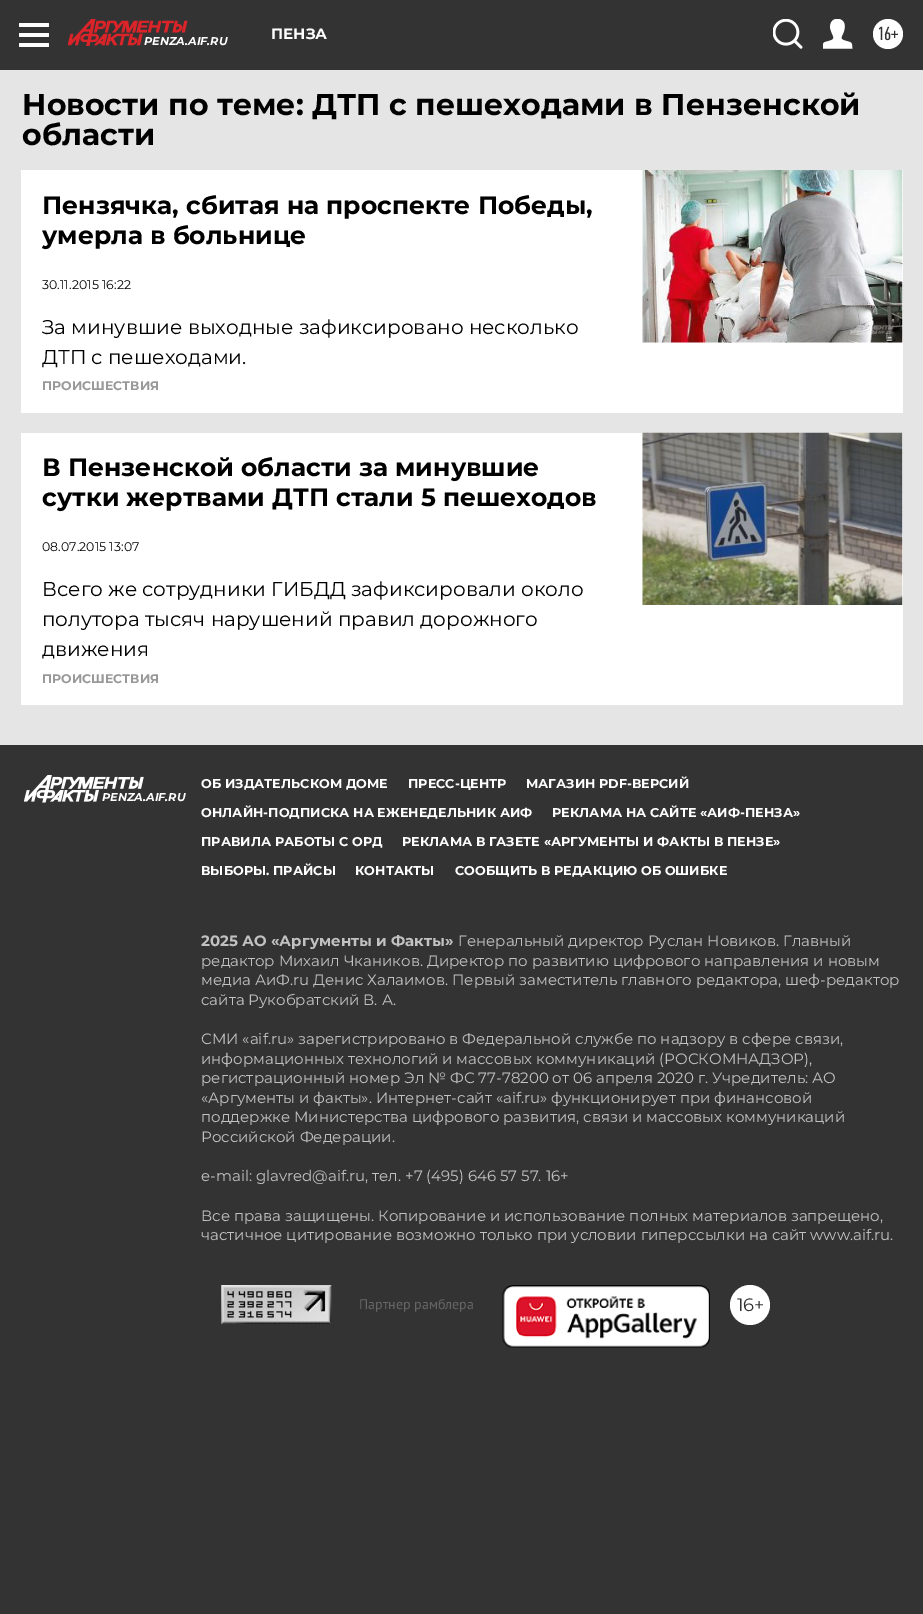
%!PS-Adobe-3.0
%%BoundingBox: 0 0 923 1614
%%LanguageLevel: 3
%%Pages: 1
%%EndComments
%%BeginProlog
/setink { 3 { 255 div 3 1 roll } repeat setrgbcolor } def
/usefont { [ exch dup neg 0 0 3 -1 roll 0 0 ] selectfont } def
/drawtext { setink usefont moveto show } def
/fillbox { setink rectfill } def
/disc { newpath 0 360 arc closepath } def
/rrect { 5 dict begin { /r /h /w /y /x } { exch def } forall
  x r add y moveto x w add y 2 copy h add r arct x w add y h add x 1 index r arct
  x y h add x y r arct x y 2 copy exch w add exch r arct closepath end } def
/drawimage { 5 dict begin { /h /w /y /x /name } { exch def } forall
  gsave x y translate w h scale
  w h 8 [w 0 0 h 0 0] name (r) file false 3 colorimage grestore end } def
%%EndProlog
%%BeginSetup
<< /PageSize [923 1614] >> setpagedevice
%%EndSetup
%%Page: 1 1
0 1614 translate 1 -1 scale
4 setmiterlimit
0 0 923 1614 51 51 51 fillbox
0 70 923 675 229 229 229 fillbox
255 255 255 setink
19 23 30 4 1 rrect fill
19 33 30 4 1 rrect fill
19 43 30 4 1 rrect fill
(ПЕНЗА) 271 39 /Montserrat-Bold 15 255 255 255 drawtext
(assets/img1.rgb) 773 19 30 30 drawimage
(assets/img2.rgb) 823 19 30 30 drawimage
888 34 15 disc fill
(16+) 877 40 /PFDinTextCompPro-Regular 19 51 51 51 drawtext
(assets/img3.rgb) 68 19 120 27 drawimage
(PENZA.AIF.RU) 144 45 /Montserrat-BoldItalic 11.25 255 255 255 drawtext
(Новости по теме: ДТП с пешеходами в Пензенской) 22 115 /Montserrat-Bold 30 0 0 0 drawtext
(области) 22 145 /Montserrat-Bold 30 0 0 0 drawtext
21 170 882 243 255 255 255 fillbox
(Пензячка, сбитая на проспекте Победы,) 42 214 /Montserrat-Bold 25 0 0 0 drawtext
(умерла в больнице) 42 244 /Montserrat-Bold 25 0 0 0 drawtext
(30.11.2015 16:22) 42 289 /Montserrat-Regular 12.5 0 0 0 drawtext
(За минувшие выходные зафиксировано несколько) 42 334 /Montserrat-Regular 20 0 0 0 drawtext
(ДТП с пешеходами.) 42 364 /Montserrat-Regular 20 0 0 0 drawtext
(assets/img4.rgb) 642 170 261 173 drawimage
(ПРОИСШЕСТВИЯ) 42 390 /Montserrat-Bold 12.5 153 153 153 drawtext
21 433 882 272 255 255 255 fillbox
(В Пензенской области за минувшие) 42 476 /Montserrat-Bold 25 0 0 0 drawtext
(сутки жертвами ДТП стали 5 пешеходов) 42 506 /Montserrat-Bold 25 0 0 0 drawtext
(08.07.2015 13:07) 42 551 /Montserrat-Regular 12.5 0 0 0 drawtext
(Всего же сотрудники ГИБДД зафиксировали около) 42 596 /Montserrat-Regular 20 0 0 0 drawtext
(полутора тысяч нарушений правил дорожного) 42 626 /Montserrat-Regular 20 0 0 0 drawtext
(движения) 42 656 /Montserrat-Regular 20 0 0 0 drawtext
(assets/img5.rgb) 642 432 261 173 drawimage
(ПРОИСШЕСТВИЯ) 42 683 /Montserrat-Bold 12.5 153 153 153 drawtext
(assets/img6.rgb) 24 775 120 28 drawimage
(PENZA.AIF.RU) 102 801 /Montserrat-BoldItalic 11.25 255 255 255 drawtext
(ОБ ИЗДАТЕЛЬСКОМ ДОМЕ) 201 788 /Montserrat-Bold 12.75 255 255 255 drawtext
(ПРЕСС-ЦЕНТР) 408 788 /Montserrat-Bold 12.75 255 255 255 drawtext
(МАГАЗИН PDF-ВЕРСИЙ) 526 788 /Montserrat-Bold 12.75 255 255 255 drawtext
(ОНЛАЙН-ПОДПИСКА НА ЕЖЕНЕДЕЛЬНИК АИФ) 201 817 /Montserrat-Bold 12.75 255 255 255 drawtext
(РЕКЛАМА НА САЙТЕ «АИФ-ПЕНЗА») 552 817 /Montserrat-Bold 12.75 255 255 255 drawtext
(ПРАВИЛА РАБОТЫ С ОРД) 201 846 /Montserrat-Bold 12.75 255 255 255 drawtext
(РЕКЛАМА В ГАЗЕТЕ «АРГУМЕНТЫ И ФАКТЫ В ПЕНЗЕ») 402 846 /Montserrat-Bold 12.75 255 255 255 drawtext
(ВЫБОРЫ. ПРАЙСЫ) 201 875 /Montserrat-Bold 12.75 255 255 255 drawtext
(КОНТАКТЫ) 355 875 /Montserrat-Bold 12.75 255 255 255 drawtext
(СООБЩИТЬ В РЕДАКЦИЮ ОБ ОШИБКЕ) 455 875 /Montserrat-Bold 12.75 255 255 255 drawtext
(2025 АО «Аргументы и Факты») 201 946 /Montserrat-Bold 15 194 194 194 drawtext
(Генеральный директор Руслан Новиков. Главный) 458 946 /Montserrat-Regular 15 194 194 194 drawtext
(редактор Михаил Чкаников. Директор по развитию цифрового направления и новым) 201 966 /Montserrat-Regular 15 194 194 194 drawtext
(медиа АиФ.ru Денис Халаимов. Первый заместитель главного редактора, шеф-редактор) 201 985 /Montserrat-Regular 15 194 194 194 drawtext
(сайта Рукобратский В. А.) 201 1005 /Montserrat-Regular 15 194 194 194 drawtext
(СМИ «aif.ru» зарегистрировано в Федеральной службе по надзору в сфере связи,) 201 1044 /Montserrat-Regular 15 194 194 194 drawtext
(информационных технологий и массовых коммуникаций \(РОСКОМНАДЗОР\),) 201 1064 /Montserrat-Regular 15 194 194 194 drawtext
(регистрационный номер Эл № ФС 77-78200 от 06 апреля 2020 г. Учредитель: АО) 201 1083 /Montserrat-Regular 15 194 194 194 drawtext
(«Аргументы и факты». Интернет-сайт «aif.ru» функционирует при финансовой) 201 1103 /Montserrat-Regular 15 194 194 194 drawtext
(поддержке Министерства цифрового развития, связи и массовых коммуникаций) 201 1122 /Montserrat-Regular 15 194 194 194 drawtext
(Российской Федерации.) 201 1142 /Montserrat-Regular 15 194 194 194 drawtext
(e-mail: glavred@aif.ru, тел. +7 \(495\) 646 57 57. 16+) 201 1181 /Montserrat-Regular 15 194 194 194 drawtext
(Все права защищены. Копирование и использование полных материалов запрещено,) 201 1221 /Montserrat-Regular 15 194 194 194 drawtext
(частичное цитирование возможно только при условии гиперссылки на сайт www.aif.ru.) 201 1240 /Montserrat-Regular 15 194 194 194 drawtext
(assets/img7.rgb) 221 1285 111 39 drawimage
(Партнер рамблера) 359 1309 /PTSans-Regular 14 102 102 102 drawtext
(assets/img8.rgb) 502 1285 208 63 drawimage
255 255 255 setink
750 1305 20 disc fill
(16+) 737 1311 /Montserrat-Regular 18 51 51 51 drawtext
showpage
%%EOF
